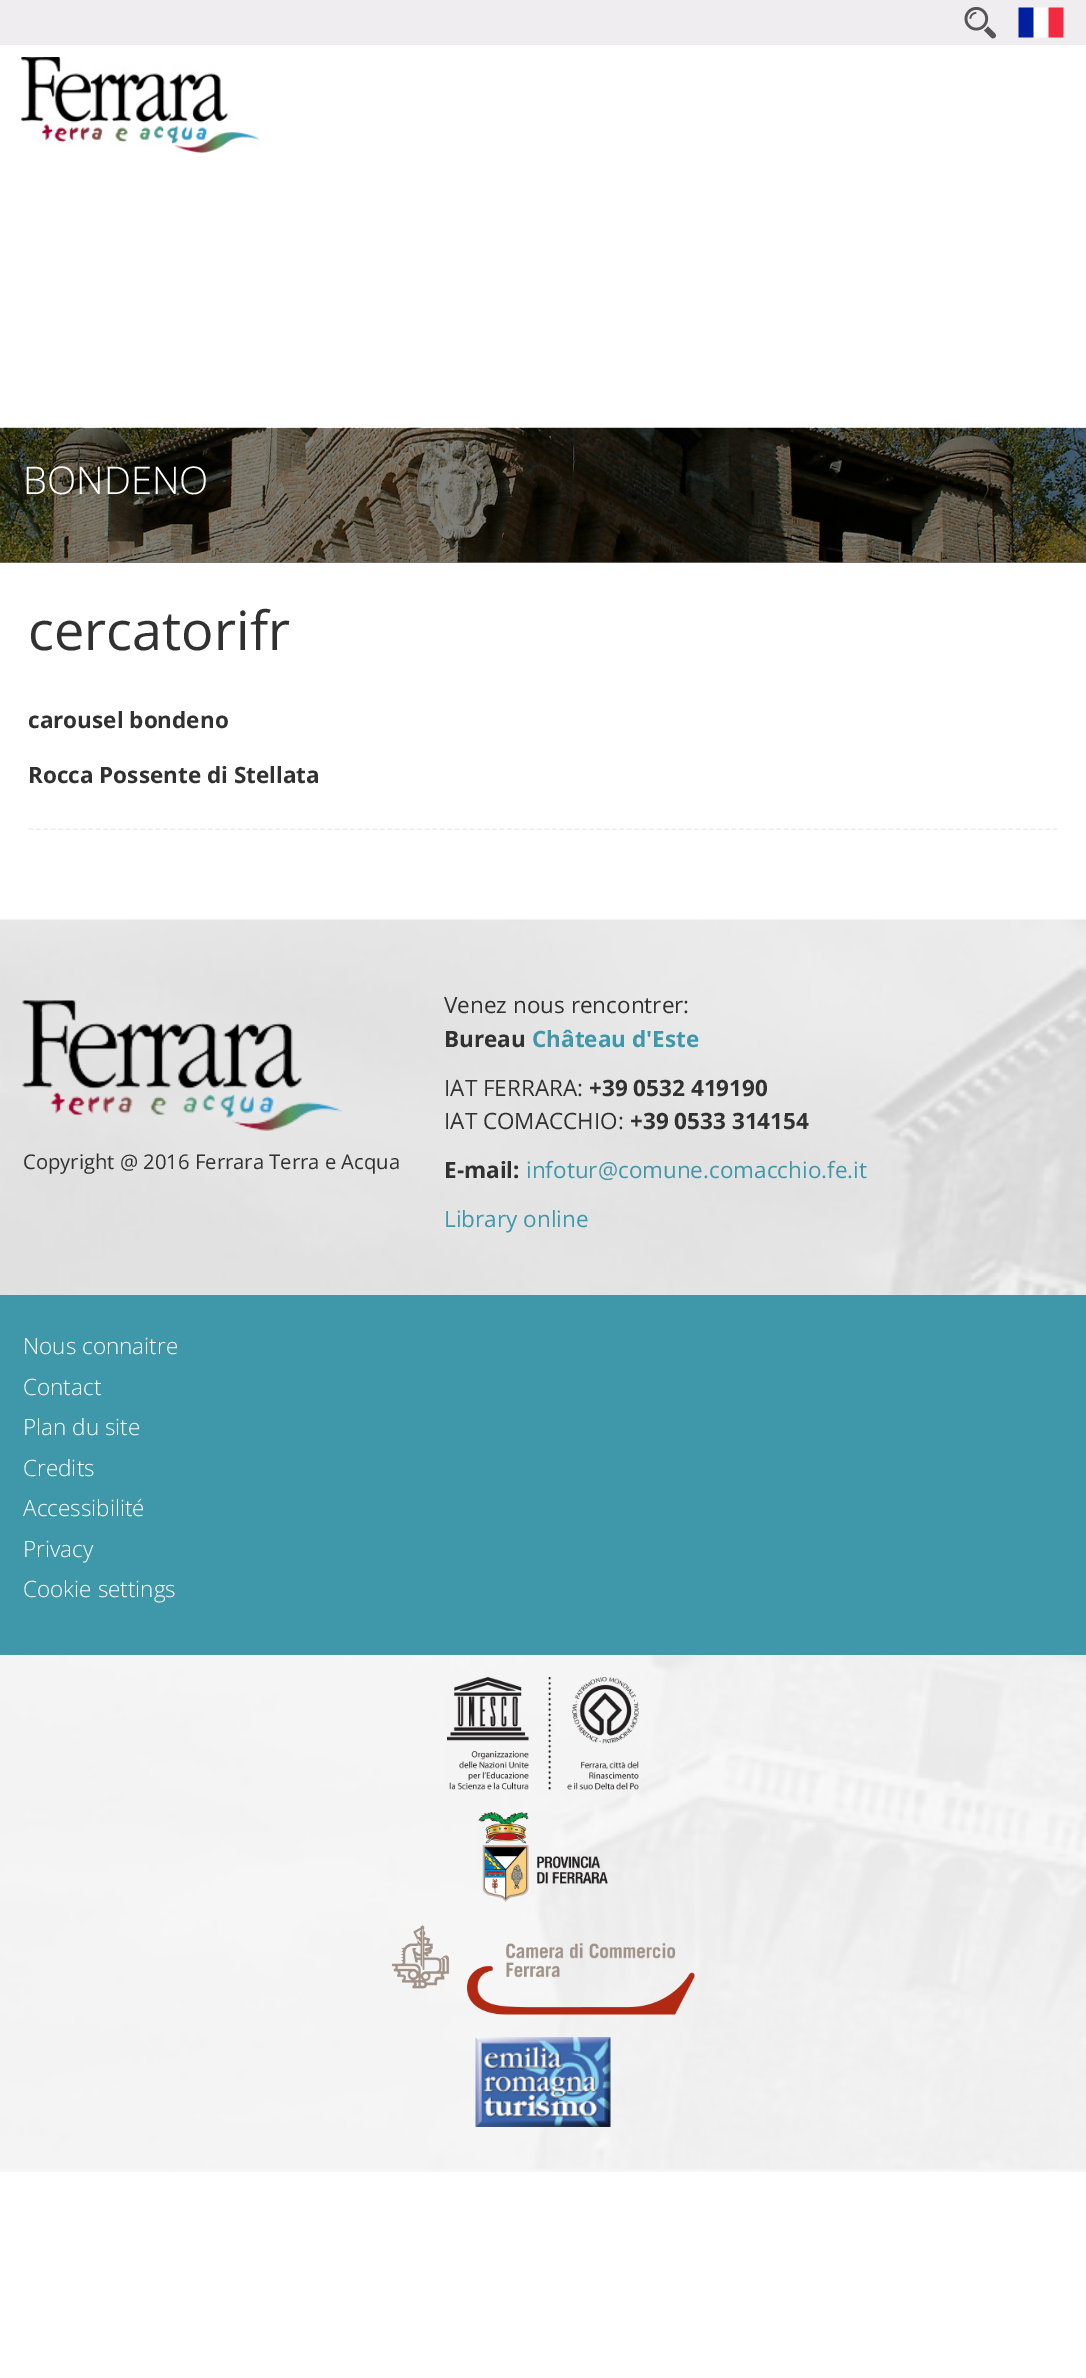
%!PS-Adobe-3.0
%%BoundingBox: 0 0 1086 2378
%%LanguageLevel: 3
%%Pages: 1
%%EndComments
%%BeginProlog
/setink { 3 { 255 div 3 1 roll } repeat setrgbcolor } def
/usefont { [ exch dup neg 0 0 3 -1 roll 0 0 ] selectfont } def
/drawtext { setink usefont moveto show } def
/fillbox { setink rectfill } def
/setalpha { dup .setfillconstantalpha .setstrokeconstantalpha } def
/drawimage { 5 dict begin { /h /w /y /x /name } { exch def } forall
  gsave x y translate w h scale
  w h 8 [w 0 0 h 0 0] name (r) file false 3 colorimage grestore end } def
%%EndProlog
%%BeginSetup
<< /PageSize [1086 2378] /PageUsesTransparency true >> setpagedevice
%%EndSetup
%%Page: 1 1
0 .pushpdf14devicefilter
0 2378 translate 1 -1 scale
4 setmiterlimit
0 0 1086 2378 255 255 255 fillbox
0 0 1086 45 239 237 239 fillbox
(assets/img1.rgb) 1018 7 46 31 drawimage
(assets/img2.rgb) 964 6 32 33 drawimage
(assets/img3.rgb) 21 57 239 96 drawimage
0 562 1086 1 120 119 120 fillbox
(assets/img4.rgb) 0 427 1086 136 drawimage
(BONDENO) 23 494 /OpenSans-Light 38.25 255 255 255 drawtext
(cercatorifr) 28 650 /OpenSans-Regular 54 49 49 49 drawtext
238 238 238 setink
1.5 setlinewidth
[4.5 2.98] 0 setdash
28.5 829 moveto 1057.5 829 lineto stroke
(carousel bondeno) 28 728 /OpenSans-Bold 22.5 49 49 49 drawtext
(Rocca Possente di Stellata) 28 783 /OpenSans-Bold 22.5 49 49 49 drawtext
(assets/img5.rgb) 0 919 1086 1253 drawimage
(assets/img6.rgb) 22 1000 321 131 drawimage
(Copyright @ 2016 Ferrara Terra e Acqua) 23 1169 /OpenSans-Regular 20.25 49 49 49 drawtext
(Venez nous rencontrer:) 444 1013 /OpenSans-Regular 22.5 49 49 49 drawtext
(Bureau) 444 1047 /OpenSans-Bold 22.5 49 49 49 drawtext
(Château d'Este) 532 1047 /OpenSans-Bold 22.5 63 151 170 drawtext
(IAT FERRARA:) 444 1096 /OpenSans-Regular 22.5 49 49 49 drawtext
(+39 0532 419190) 589 1096 /OpenSans-Bold 22.5 49 49 49 drawtext
(IAT COMACCHIO:) 444 1129 /OpenSans-Regular 22.5 49 49 49 drawtext
(+39 0533 314154) 630 1129 /OpenSans-Bold 22.5 49 49 49 drawtext
(E-mail:) 444 1178 /OpenSans-Bold 22.5 49 49 49 drawtext
(infotur@comune.comacchio.fe.it) 526 1178 /OpenSans-Regular 22.5 63 151 170 drawtext
(Library online) 444 1227 /OpenSans-Regular 22.5 63 151 170 drawtext
0 1295 1086 360 63 151 170 fillbox
(Nous connaitre) 23 1354 /OpenSans-Light 22.5 255 255 255 drawtext
(Contact) 23 1395 /OpenSans-Light 22.5 255 255 255 drawtext
(Plan du site) 23 1435 /OpenSans-Light 22.5 255 255 255 drawtext
(Credits) 23 1476 /OpenSans-Light 22.5 255 255 255 drawtext
(Accessibilité) 23 1516 /OpenSans-Light 22.5 255 255 255 drawtext
(Privacy) 23 1557 /OpenSans-Light 22.5 255 255 255 drawtext
(Cookie settings) 23 1597 /OpenSans-Light 22.5 255 255 255 drawtext
0.5 setalpha
0 1655 1086 517 255 255 255 fillbox
1 setalpha
(assets/img7.rgb) 447 1677 192 113 drawimage
(assets/img8.rgb) 478 1812 130 90 drawimage
(assets/img9.rgb) 391 1924 304 91 drawimage
(assets/img10.rgb) 475 2037 136 90 drawimage
.poppdf14devicefilter showpage
%%EOF
